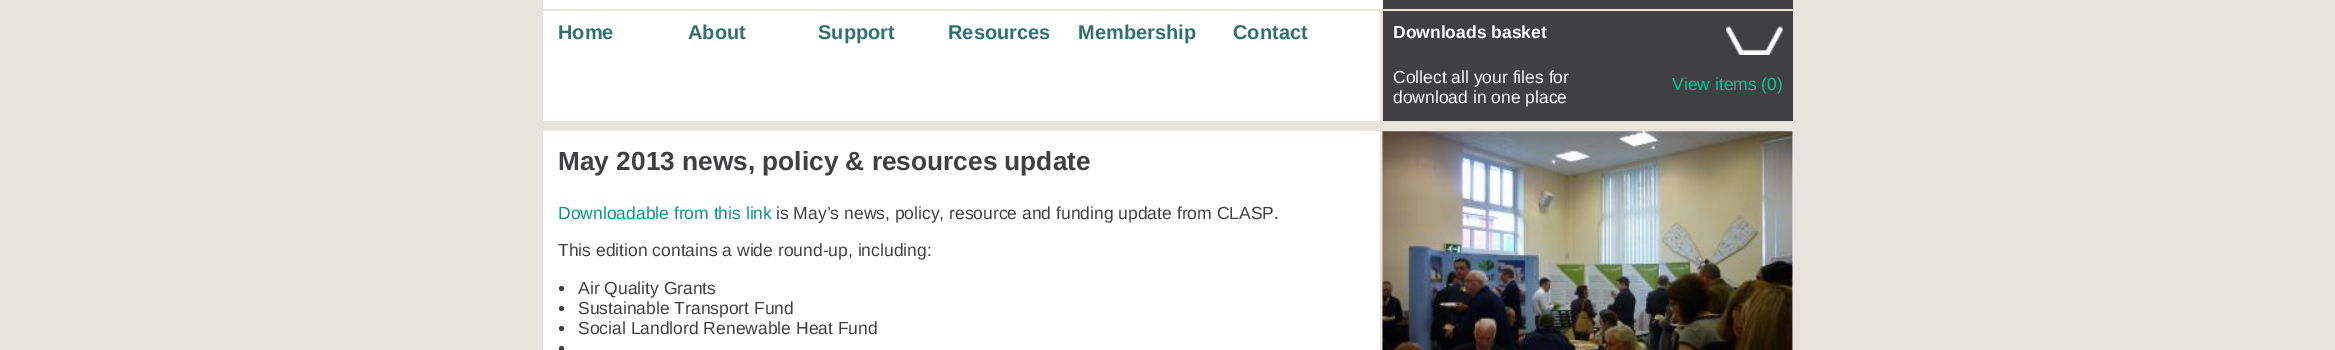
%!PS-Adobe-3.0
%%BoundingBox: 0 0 2335 350
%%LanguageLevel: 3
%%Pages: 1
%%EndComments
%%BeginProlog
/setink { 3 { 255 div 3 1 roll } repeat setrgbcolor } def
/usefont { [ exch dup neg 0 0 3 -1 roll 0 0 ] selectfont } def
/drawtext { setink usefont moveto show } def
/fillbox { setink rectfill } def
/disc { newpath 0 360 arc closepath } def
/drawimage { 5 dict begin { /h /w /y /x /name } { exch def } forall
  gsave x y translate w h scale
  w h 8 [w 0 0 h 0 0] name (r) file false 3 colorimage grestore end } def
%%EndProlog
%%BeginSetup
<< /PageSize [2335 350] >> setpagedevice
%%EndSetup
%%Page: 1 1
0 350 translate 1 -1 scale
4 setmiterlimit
0 0 2335 350 232 227 219 fillbox
543 0 840 9 255 255 255 fillbox
1383 0 410 9 64 64 66 fillbox
543 11 837 110 255 255 255 fillbox
(Home) 558 39 /LiberationSans-Bold 20 52 111 115 drawtext
(About) 688 39 /LiberationSans-Bold 20 52 111 115 drawtext
(Support) 818 39 /LiberationSans-Bold 20 52 111 115 drawtext
(Resources) 948 39 /LiberationSans-Bold 20 52 111 115 drawtext
(Membership) 1078 39 /LiberationSans-Bold 20 52 111 115 drawtext
(Contact) 1233 39 /LiberationSans-Bold 20 52 111 115 drawtext
1383 11 410 110 64 64 66 fillbox
(Downloads basket) 1393 38 /LiberationSans-Bold 17.5 255 255 255 drawtext
(Collect all your files for) 1393 83 /LiberationSans-Regular 17.5 255 255 255 drawtext
(download in one place) 1393 103 /LiberationSans-Regular 17.5 255 255 255 drawtext
(assets/img1.rgb) 1726 26 57 29 drawimage
(View items \(0\)) 1672 90 /LiberationSans-Regular 17.5 0 200 151 drawtext
543 131 1250 219 255 255 255 fillbox
(May 2013 news, policy & resources update) 558 170 /LiberationSans-Bold 26.25 64 64 66 drawtext
(Downloadable from this link) 558 219 /LiberationSans-Regular 17.5 2 150 141 drawtext
(is May’s news, policy, resource and funding update from CLASP.) 776 219 /LiberationSans-Regular 17.5 64 64 66 drawtext
(This edition contains a wide round-up, including:) 558 256 /LiberationSans-Regular 17.5 64 64 66 drawtext
561.5 288.5 2.5 disc fill
(Air Quality Grants) 578 294 /LiberationSans-Regular 17.5 64 64 66 drawtext
561.5 308.5 2.5 disc fill
(Sustainable Transport Fund) 578 314 /LiberationSans-Regular 17.5 64 64 66 drawtext
561.5 328.5 2.5 disc fill
(Social Landlord Renewable Heat Fund) 578 334 /LiberationSans-Regular 17.5 64 64 66 drawtext
561.5 348.5 2.5 disc fill
1380 131 3 219 232 227 219 fillbox
(assets/img2.rgb) 1382 131 411 219 drawimage
showpage
%%EOF
